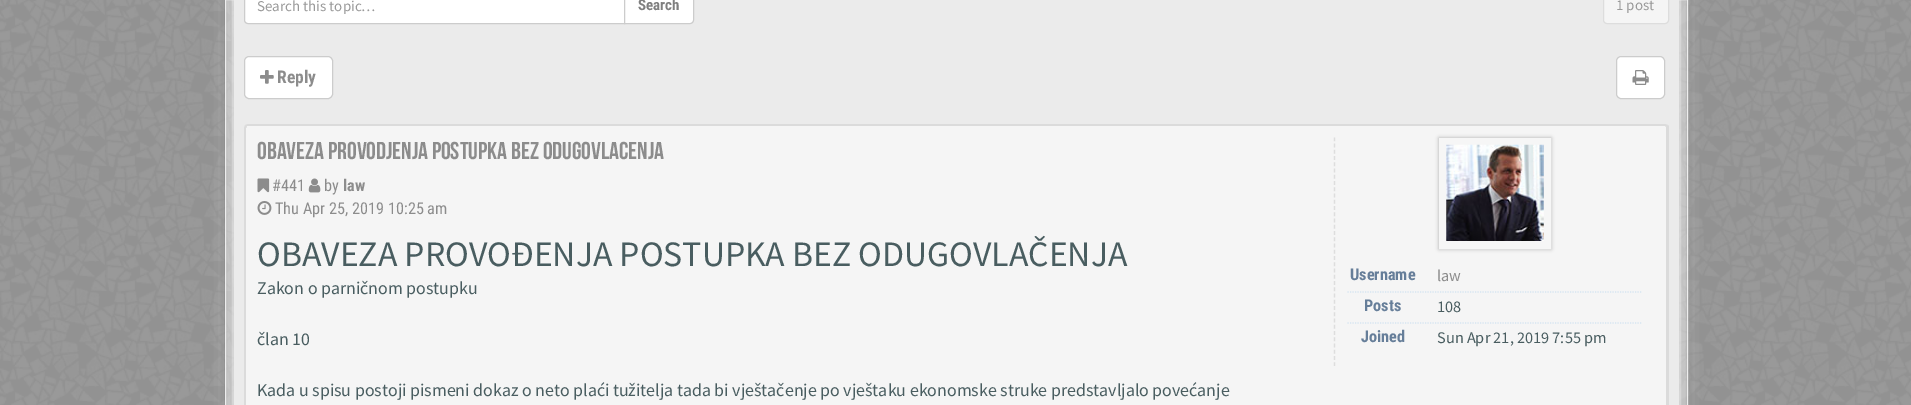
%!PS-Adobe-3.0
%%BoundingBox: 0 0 1911 405
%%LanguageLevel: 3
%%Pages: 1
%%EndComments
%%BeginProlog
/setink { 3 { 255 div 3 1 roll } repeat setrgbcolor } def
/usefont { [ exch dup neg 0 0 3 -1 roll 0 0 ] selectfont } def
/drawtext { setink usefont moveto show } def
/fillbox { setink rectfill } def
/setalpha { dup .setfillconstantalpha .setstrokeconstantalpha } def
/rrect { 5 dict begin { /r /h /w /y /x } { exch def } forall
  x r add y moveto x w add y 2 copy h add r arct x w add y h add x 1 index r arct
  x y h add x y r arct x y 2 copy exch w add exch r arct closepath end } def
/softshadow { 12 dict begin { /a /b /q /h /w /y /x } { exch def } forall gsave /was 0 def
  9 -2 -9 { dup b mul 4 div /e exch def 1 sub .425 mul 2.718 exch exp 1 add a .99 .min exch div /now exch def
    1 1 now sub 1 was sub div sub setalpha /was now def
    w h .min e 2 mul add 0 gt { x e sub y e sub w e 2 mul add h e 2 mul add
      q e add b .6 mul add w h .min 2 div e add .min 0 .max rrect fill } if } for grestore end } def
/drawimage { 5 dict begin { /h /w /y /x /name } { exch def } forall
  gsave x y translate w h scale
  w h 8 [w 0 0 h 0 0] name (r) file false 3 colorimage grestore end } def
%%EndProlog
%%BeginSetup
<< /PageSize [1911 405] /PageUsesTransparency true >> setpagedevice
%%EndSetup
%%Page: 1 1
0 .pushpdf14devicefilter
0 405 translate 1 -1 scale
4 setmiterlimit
0 0 1911 405 153 153 153 fillbox
(assets/img1.rgb) 0 0 1911 405 drawimage
gsave
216 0 moveto 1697 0 lineto 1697 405 lineto 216 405 lineto closepath 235 -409 moveto 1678 -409 lineto 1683.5 -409 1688 -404.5 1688 -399 curveto 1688 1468 lineto 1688 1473.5 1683.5 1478 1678 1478 curveto 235 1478 lineto 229.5 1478 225 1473.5 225 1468 curveto 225 -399 lineto 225 -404.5 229.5 -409 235 -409 curveto closepath eoclip newpath
50 50 50 setink
225 -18 1463 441 10 2.5 0.5 softshadow
grestore
0.2 setalpha
225 0 1463 405 255 255 255 fillbox
0.75 setalpha
225.5 -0.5 1462 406 rectstroke
1 setalpha
234 -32 1445 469 5 9 1 softshadow
234 0 1445 405 235 235 235 fillbox
255 255 255 setink
248 -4.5 moveto 624.5 -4.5 lineto 624.5 23.5 lineto 248 23.5 lineto 246 23.5 244.5 22 244.5 20 curveto 244.5 -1 lineto 244.5 -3 246 -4.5 248 -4.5 curveto closepath gsave fill grestore
204 204 204 setink
stroke
(Search this topic…) 257 11 /SourceSansPro-Regular 15 153 153 153 drawtext
255 255 255 setink
624.5 -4.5 moveto 690 -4.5 lineto 692 -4.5 693.5 -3 693.5 -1 curveto 693.5 20 lineto 693.5 22 692 23.5 690 23.5 curveto 624.5 23.5 lineto closepath gsave fill grestore
204 204 204 setink
stroke
(Search) 638 10 /RobotoCondensed-Bold 15 127 127 127 drawtext
245 245 245 setink
1603.5 -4.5 65 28 3.5 rrect gsave fill grestore
221 221 221 setink
stroke
(1 post) 1616 10 /SourceSansPro-Regular 15 153 153 153 drawtext
255 255 255 setink
244.5 56.5 88 42 4.5 rrect gsave fill grestore
204 204 204 setink
stroke
(assets/img2.rgb) 260 70 14 14 drawimage
(Reply) 277 83 /RobotoCondensed-Bold 17.5 140 140 140 drawtext
255 255 255 setink
1616.5 56.5 48 42 4.5 rrect gsave fill grestore
204 204 204 setink
stroke
(assets/img3.rgb) 1632 70 17 15 drawimage
245 245 245 setink
248 126 moveto 1665 126 lineto 1666 126 1666 127 1666 128 curveto 1666 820 lineto 1666 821 1666 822 1665 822 curveto 248 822 lineto 247 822 246 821 246 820 curveto 246 128 lineto 246 127 247 126 248 126 curveto closepath fill
219 219 219 setink
248 124 moveto 245 125 lineto 247 127 lineto 247 126 lineto 1193 126 lineto 1665 126 lineto 1666 127 lineto 1668 125 lineto 1665 124 lineto closepath fill
1668 125 moveto 1669 126 lineto 1669 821 lineto 1667 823 lineto 1665 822 lineto 1666 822 1666 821 1666 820 curveto 1666 127 lineto closepath fill
245 125 moveto 244 128 lineto 244 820 lineto 245 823 lineto 247 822 lineto 247 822 246 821 246 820 curveto 246 128 lineto 247 127 lineto closepath fill
(Obaveza provodjenja postupka bez odugovlacenja) 257 159 /BebasNeue-Regular 24.4 140 140 140 drawtext
(assets/img4.rgb) 257 178 13 15 drawimage
(#441) 272 191 /RobotoCondensed-Regular 16.25 140 140 140 drawtext
(assets/img5.rgb) 308 178 13 15 drawimage
(by) 324 191 /RobotoCondensed-Regular 16.25 140 140 140 drawtext
(law) 343 191 /RobotoCondensed-Bold 16.25 140 140 140 drawtext
(assets/img6.rgb) 257 201 15 14 drawimage
(Thu Apr 25, 2019 10:25 am) 275 214 /RobotoCondensed-Regular 16.25 140 140 140 drawtext
(OBAVEZA PROVOĐENJA POSTUPKA BEZ ODUGOVLAČENJA) 257 266 /SourceSansPro-Regular 35.75 73 93 96 drawtext
(Zakon o parničnom postupku) 257 294 /SourceSansPro-Regular 17.88 73 93 96 drawtext
(član 10) 257 345 /SourceSansPro-Regular 17.88 73 93 96 drawtext
(Kada u spisu postoji pismeni dokaz o neto plaći tužitelja tada bi vještačenje po vještaku ekonomske struke predstavljalo povećanje) 257 396 /SourceSansPro-Regular 17.88 73 93 96 drawtext
221 221 221 setink
1.2 setlinewidth
[3.75 2.5] 0 setdash
1334.5 137.5 moveto 1334.5 366 lineto stroke
0 0 0 setink
1439 138 112 111 0 2 0.3 softshadow
246 246 246 setink
8 setlinewidth
[] 0 setdash
1443 142 104 103 rectstroke
(assets/img7.rgb) 1446 144 98 97 drawimage
(Username) 1350 280 /RobotoCondensed-Bold 16.25 102 126 153 drawtext
(law) 1437 281 /SourceSansPro-Regular 16.25 140 140 140 drawtext
213 228 241 setink
1.2 setlinewidth
[1.25 1.25] 0 setdash
1347.5 292 moveto 1642.5 292 lineto stroke
(Posts) 1364 311 /RobotoCondensed-Bold 16.25 102 126 153 drawtext
(108) 1437 312 /SourceSansPro-Regular 16.25 73 93 96 drawtext
213 228 241 setink
1347.5 323 moveto 1642.5 323 lineto stroke
(Joined) 1361 342 /RobotoCondensed-Bold 16.25 102 126 153 drawtext
(Sun Apr 21, 2019 7:55 pm) 1437 343 /SourceSansPro-Regular 16.25 73 93 96 drawtext
.poppdf14devicefilter showpage
%%EOF
